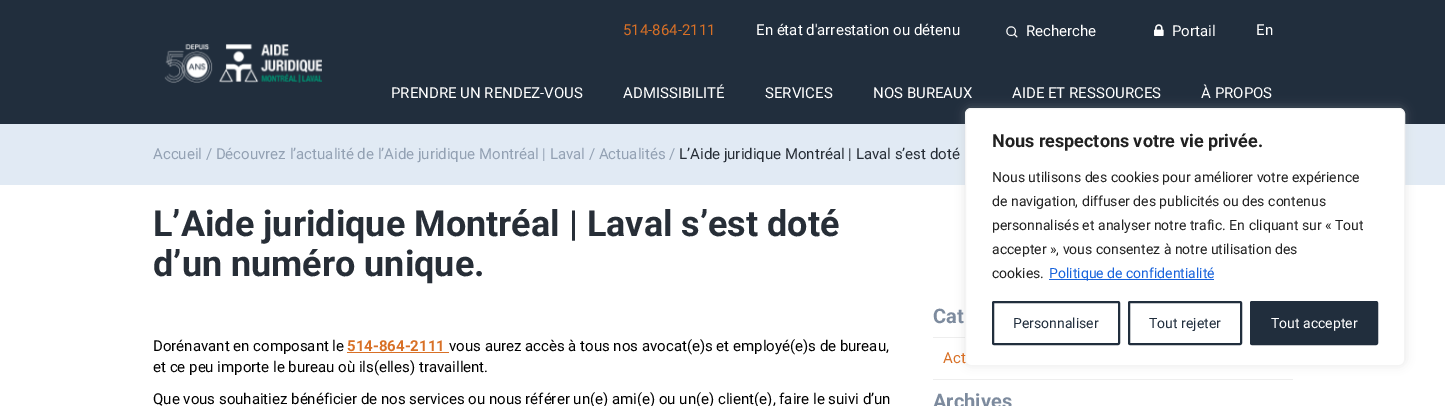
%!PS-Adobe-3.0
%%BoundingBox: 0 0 1445 406
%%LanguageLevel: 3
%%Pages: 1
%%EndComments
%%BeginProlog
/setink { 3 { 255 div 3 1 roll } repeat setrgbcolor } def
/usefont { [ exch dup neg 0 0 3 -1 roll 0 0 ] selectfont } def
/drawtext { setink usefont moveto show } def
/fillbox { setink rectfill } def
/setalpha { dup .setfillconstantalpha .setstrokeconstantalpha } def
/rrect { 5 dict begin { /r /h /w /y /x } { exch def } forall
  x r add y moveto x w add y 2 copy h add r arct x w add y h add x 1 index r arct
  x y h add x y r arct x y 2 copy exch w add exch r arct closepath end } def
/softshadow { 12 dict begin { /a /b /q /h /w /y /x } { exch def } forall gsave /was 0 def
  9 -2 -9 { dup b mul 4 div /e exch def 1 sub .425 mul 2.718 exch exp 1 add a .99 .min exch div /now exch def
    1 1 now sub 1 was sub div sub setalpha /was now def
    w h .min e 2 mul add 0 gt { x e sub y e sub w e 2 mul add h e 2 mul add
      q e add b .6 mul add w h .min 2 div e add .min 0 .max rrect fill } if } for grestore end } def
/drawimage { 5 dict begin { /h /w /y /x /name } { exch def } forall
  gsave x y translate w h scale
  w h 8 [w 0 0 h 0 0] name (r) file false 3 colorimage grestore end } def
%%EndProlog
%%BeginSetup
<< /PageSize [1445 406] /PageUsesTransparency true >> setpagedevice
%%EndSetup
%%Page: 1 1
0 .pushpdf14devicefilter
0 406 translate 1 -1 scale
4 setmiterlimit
0 0 1445 406 255 255 255 fillbox
0 0 1445 124 33 46 61 fillbox
(assets/img1.rgb) 164 44 158 39 drawimage
(514-864-2111) 623 35 /Roboto-Regular 15 216 112 38 drawtext
(En état d'arrestation ou détenu) 756 35 /Roboto-Regular 15 255 255 255 drawtext
(assets/img2.rgb) 1006 26 12 12 drawimage
(Recherche) 1026 36 /Roboto-Regular 15 255 255 255 drawtext
(assets/img3.rgb) 1154 24 10 12 drawimage
(Portail) 1172 36 /Roboto-Regular 15 255 255 255 drawtext
(En) 1256 35 /Roboto-Regular 15 255 255 255 drawtext
(PRENDRE UN RENDEZ-VOUS) 391 98 /Roboto-Regular 15 255 255 255 drawtext
(ADMISSIBILITÉ) 623 98 /Roboto-Regular 15 255 255 255 drawtext
(SERVICES) 765 98 /Roboto-Regular 15 255 255 255 drawtext
(NOS BUREAUX) 873 98 /Roboto-Regular 15 255 255 255 drawtext
(AIDE ET RESSOURCES) 1012 98 /Roboto-Regular 15 255 255 255 drawtext
(À PROPOS) 1201 98 /Roboto-Regular 15 255 255 255 drawtext
0 124 1445 61 225 234 244 fillbox
(Accueil / Découvrez l’actualité de l’Aide juridique Montréal | Laval / Actualités /) 153 159 /Roboto-Regular 15 147 161 179 drawtext
(L’Aide juridique Montréal | Laval s’est doté) 679 159 /Roboto-Regular 15 39 46 55 drawtext
933 379 360 1 238 238 238 fillbox
933 337 32 1 238 238 238 fillbox
172 171 171 setink
965 107 440 258 6 5 0.3 softshadow
255 255 255 setink
965.5 108.5 439 257 5.5 rrect gsave fill grestore
244 244 244 setink
stroke
(Nous respectons votre vie privée.) 992 147 /Roboto-Bold 18 33 33 33 drawtext
(Nous utilisons des cookies pour améliorer votre expérience) 992 182 /Roboto-Regular 14 33 33 33 drawtext
(de navigation, diffuser des publicités ou des contenus) 992 206 /Roboto-Regular 14 33 33 33 drawtext
(personnalisés et analyser notre trafic. En cliquant sur « Tout) 992 230 /Roboto-Regular 14 33 33 33 drawtext
(accepter », vous consentez à notre utilisation des) 992 254 /Roboto-Regular 14 33 33 33 drawtext
(cookies.) 992 278 /Roboto-Regular 14 33 33 33 drawtext
1049 279 165 1 24 99 220 fillbox
(Politique de confidentialité) 1049 278 /Roboto-Regular 14 24 99 220 drawtext
33 46 61 setink
2 setlinewidth
993 302 126 42 1 rrect stroke
(Personnaliser) 1013 328 /Roboto-Regular 14 33 46 61 drawtext
1129 302 112 42 1 rrect stroke
(Tout rejeter) 1149 328 /Roboto-Regular 14 33 46 61 drawtext
1251 302 126 42 1 rrect gsave fill grestore
stroke
(Tout accepter) 1271 328 /Roboto-Regular 14 255 255 255 drawtext
(L’Aide juridique Montréal | Laval s’est doté) 153 236 /Roboto-Bold 36 39 46 55 drawtext
(d’un numéro unique.) 153 276 /Roboto-Bold 36 39 46 55 drawtext
(Dorénavant en composant le) 153 351 /Roboto-Regular 15 0 0 0 drawtext
(514-864-2111) 347 351 /Roboto-Bold 15 216 112 38 drawtext
347 352 102 1 216 112 38 fillbox
(vous aurez accès à tous nos avocat\(e\)s et employé\(e\)s de bureau,) 449 351 /Roboto-Regular 15 0 0 0 drawtext
(et ce peu importe le bureau où ils\(elles\) travaillent.) 153 372 /Roboto-Regular 15 0 0 0 drawtext
(Que vous souhaitiez bénéficier de nos services ou nous référer un\(e\) ami\(e\) ou un\(e\) client\(e\), faire le suivi d’un) 153 404 /Roboto-Regular 15 0 0 0 drawtext
(Cat) 933 323 /Roboto-Bold 20 125 139 158 drawtext
(Act) 943 363 /Roboto-Regular 15 216 112 38 drawtext
(Archives) 933 408 /Roboto-Bold 20 125 139 158 drawtext
.poppdf14devicefilter showpage
%%EOF
